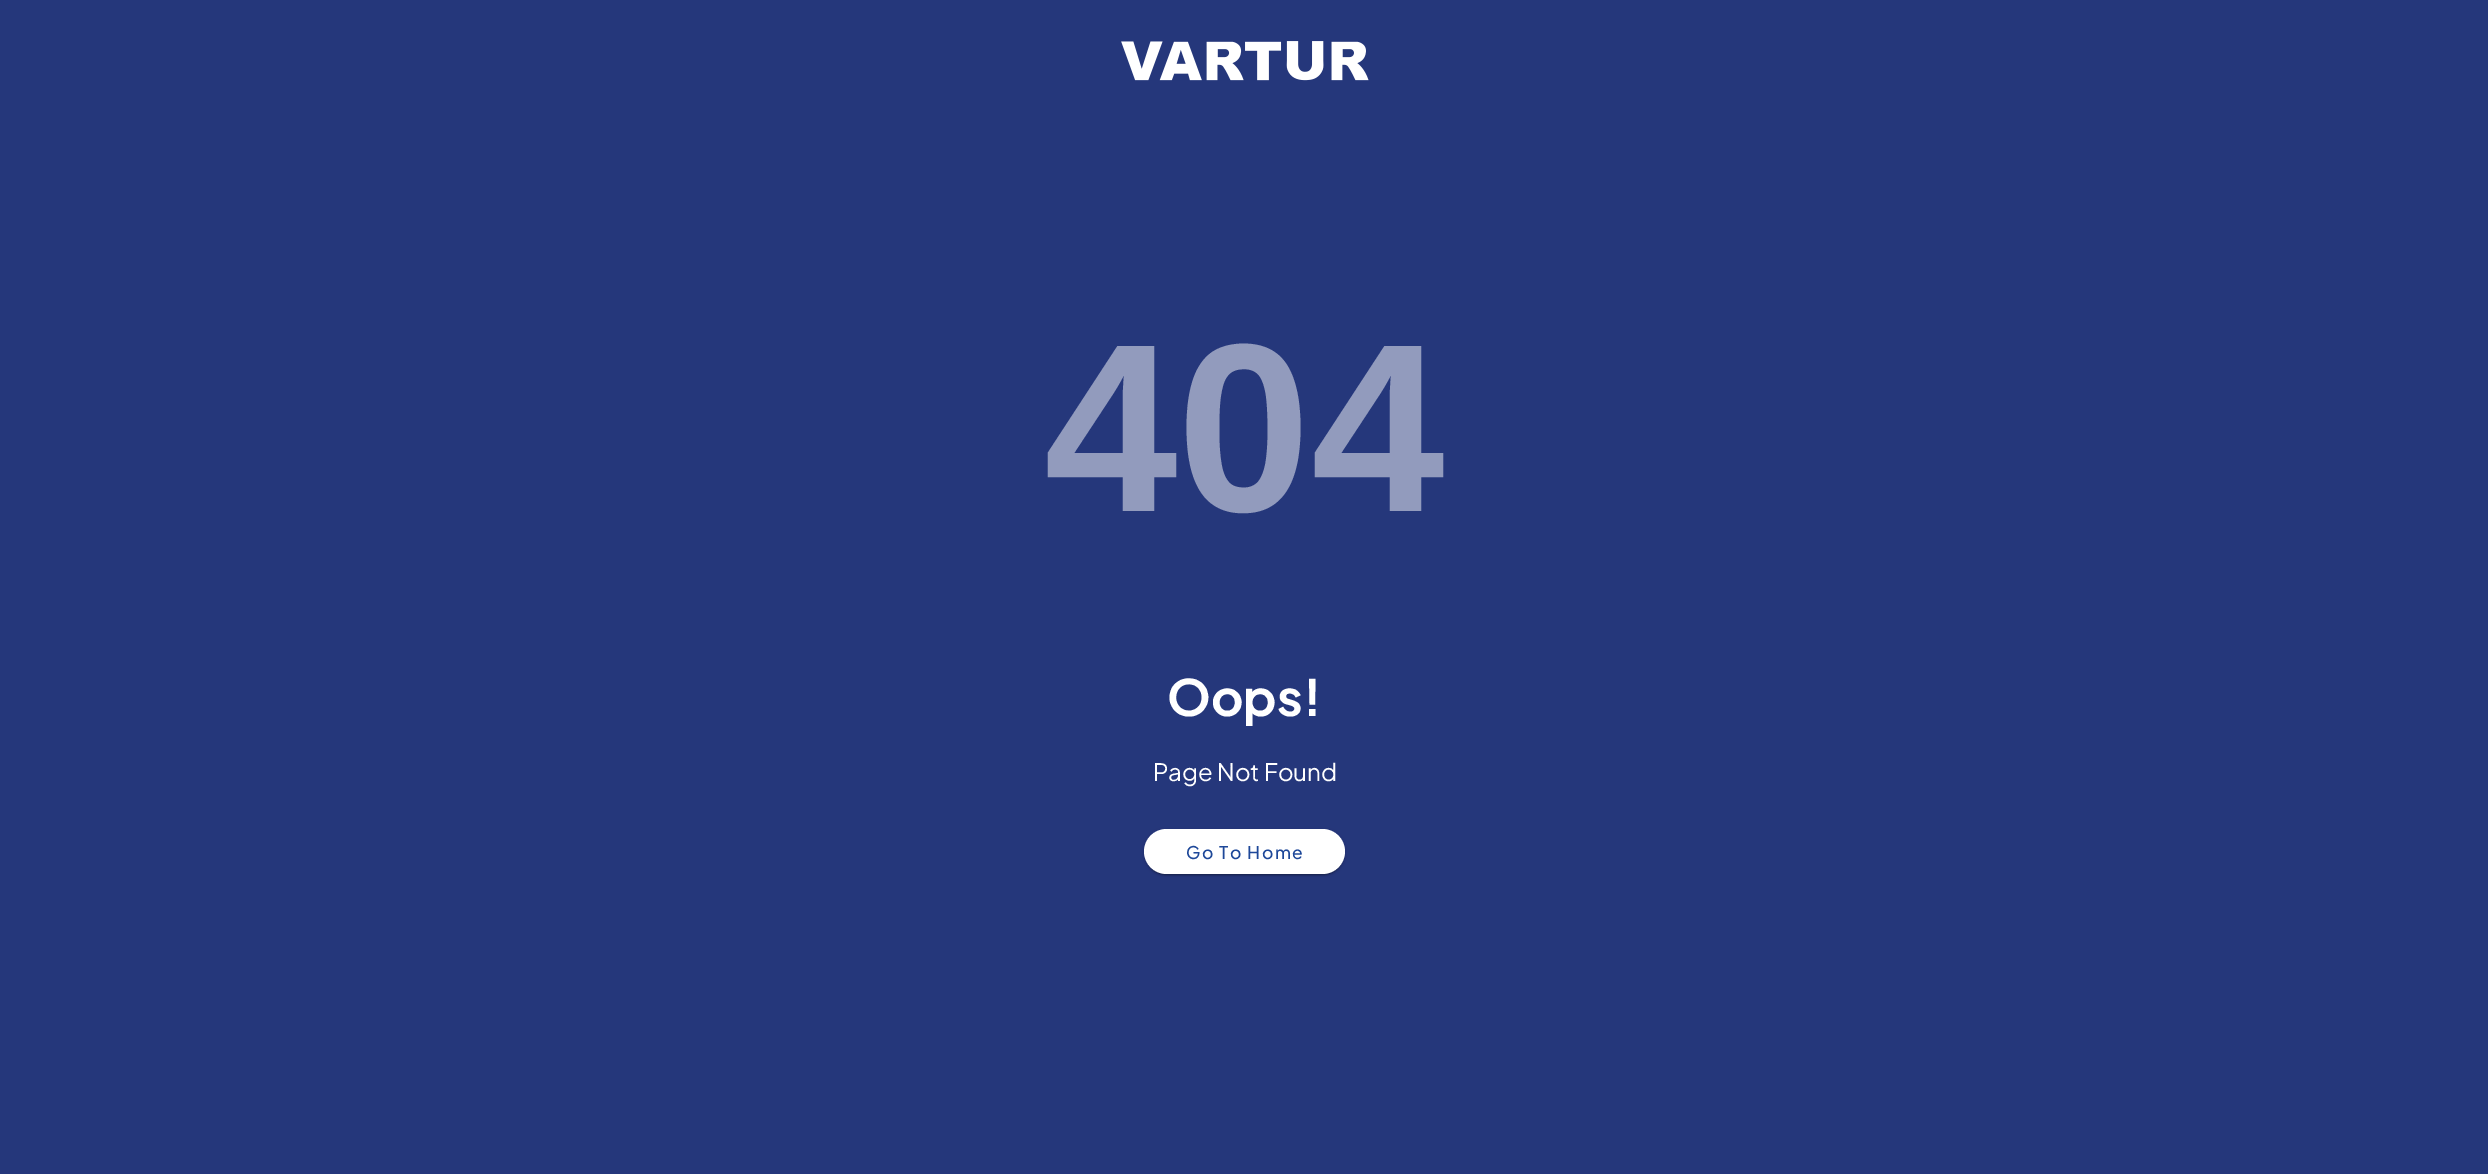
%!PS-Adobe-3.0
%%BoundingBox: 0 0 2488 1174
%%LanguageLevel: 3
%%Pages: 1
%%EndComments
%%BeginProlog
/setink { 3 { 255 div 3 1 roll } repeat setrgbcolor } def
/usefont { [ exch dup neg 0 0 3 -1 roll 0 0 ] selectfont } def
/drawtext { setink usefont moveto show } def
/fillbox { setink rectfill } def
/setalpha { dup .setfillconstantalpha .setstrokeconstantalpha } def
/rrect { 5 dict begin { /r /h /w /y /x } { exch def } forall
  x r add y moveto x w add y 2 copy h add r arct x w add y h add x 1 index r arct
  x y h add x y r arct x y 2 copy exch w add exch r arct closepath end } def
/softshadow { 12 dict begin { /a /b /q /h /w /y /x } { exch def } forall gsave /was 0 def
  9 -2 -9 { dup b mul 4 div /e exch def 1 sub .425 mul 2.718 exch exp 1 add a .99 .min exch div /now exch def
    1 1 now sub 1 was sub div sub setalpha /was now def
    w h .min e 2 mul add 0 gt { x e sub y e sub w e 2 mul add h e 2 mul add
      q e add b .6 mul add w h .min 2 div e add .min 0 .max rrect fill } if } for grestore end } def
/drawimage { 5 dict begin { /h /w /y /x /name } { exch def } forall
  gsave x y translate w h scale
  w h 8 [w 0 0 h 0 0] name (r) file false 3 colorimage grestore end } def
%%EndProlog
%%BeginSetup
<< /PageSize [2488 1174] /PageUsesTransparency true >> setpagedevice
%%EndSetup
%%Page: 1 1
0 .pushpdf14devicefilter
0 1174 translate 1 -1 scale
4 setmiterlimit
0 0 2488 1174 37 55 123 fillbox
(assets/img1.rgb) 1121 41 248 40 drawimage
(404) 1044 511 /LiberationSans-Bold 240 146 155 189 drawtext
(Oops!) 1167 716 /PlusJakartaSans-Bold 50 255 255 255 drawtext
(Page Not Found) 1153 781 /PlusJakartaSans-Regular 24 255 255 255 drawtext
0 0 0 setink
1144 830 201 45 22.5 3 0.12 softshadow
1144 831 201 45 22.5 1 0.14 softshadow
1146 835 197 40 20 0.5 0.2 softshadow
255 255 255 setink
1144 829 201 45 22.5 rrect fill
/PlusJakartaSans-Medium 17.5 usefont
30 72 153 setink
1186 859 moveto 1.5 0 (Go To Home) ashow
.poppdf14devicefilter showpage
%%EOF
